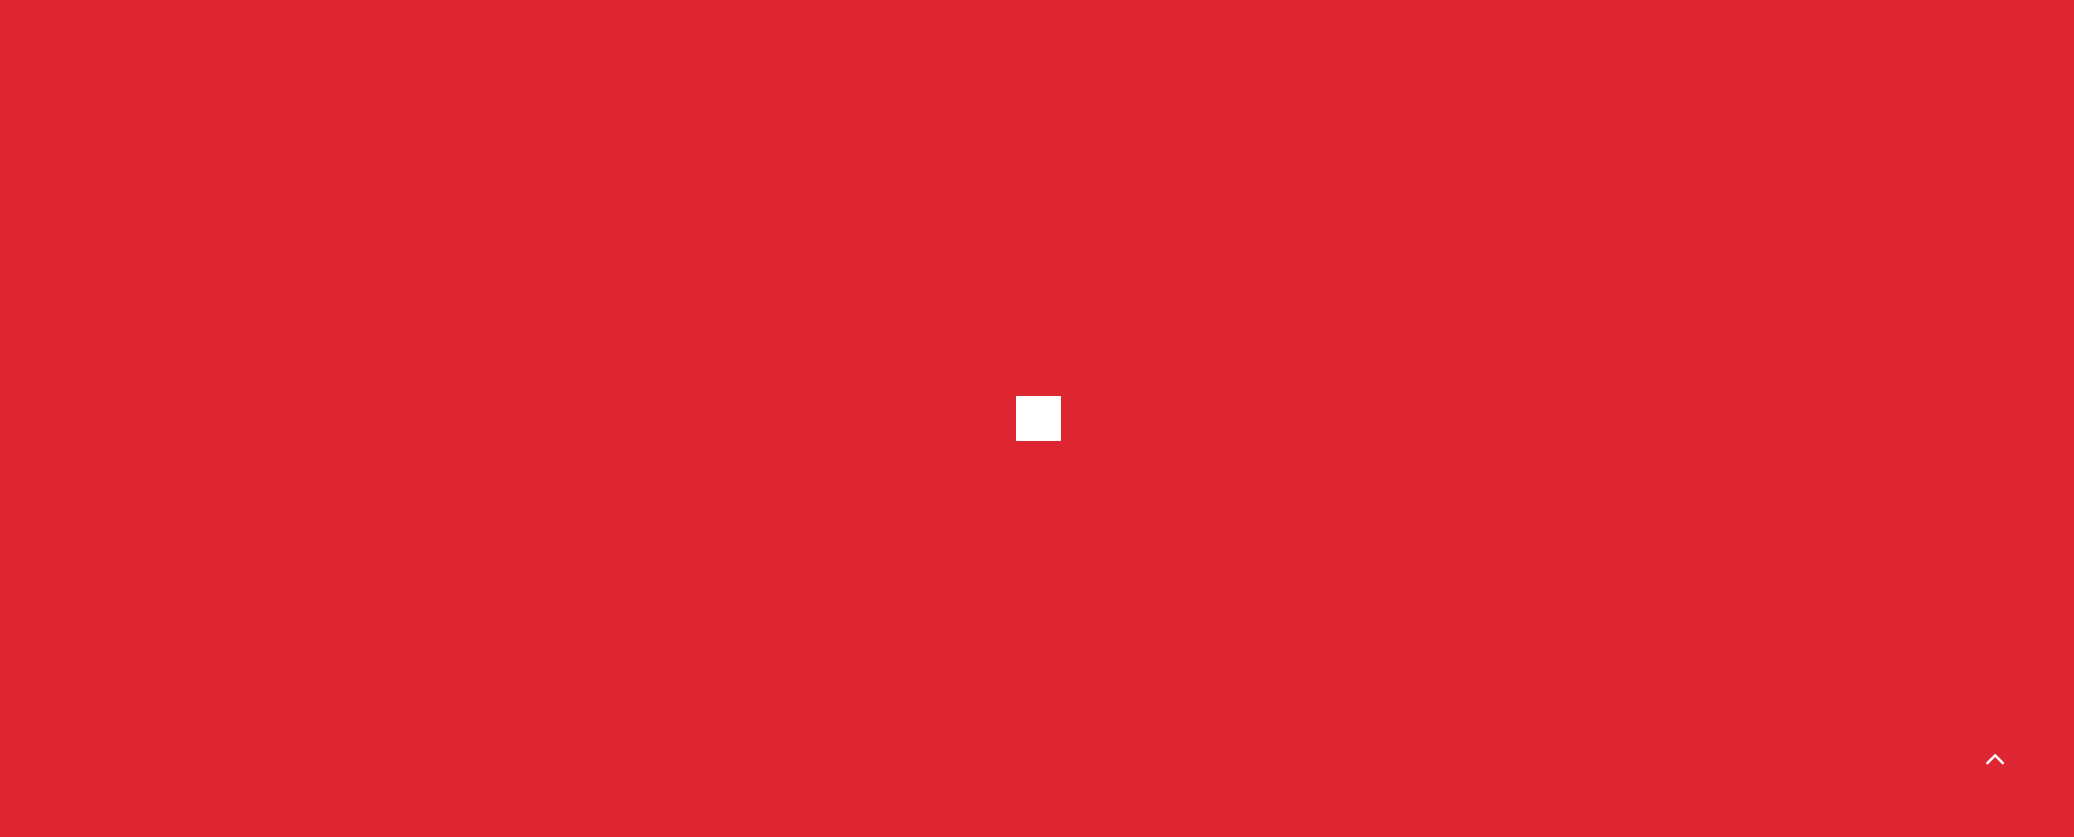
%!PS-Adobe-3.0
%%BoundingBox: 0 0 2074 837
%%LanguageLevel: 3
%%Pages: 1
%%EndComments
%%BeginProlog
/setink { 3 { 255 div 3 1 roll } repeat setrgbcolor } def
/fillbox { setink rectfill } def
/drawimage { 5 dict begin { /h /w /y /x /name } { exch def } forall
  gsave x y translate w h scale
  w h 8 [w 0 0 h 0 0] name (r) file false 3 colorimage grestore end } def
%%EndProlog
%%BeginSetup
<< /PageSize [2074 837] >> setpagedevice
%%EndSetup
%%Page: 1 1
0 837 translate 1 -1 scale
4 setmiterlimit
0 0 2074 837 222 37 50 fillbox
1016 396 45 45 255 255 255 fillbox
(assets/img1.rgb) 1986 753 19 12 drawimage
showpage
%%EOF
